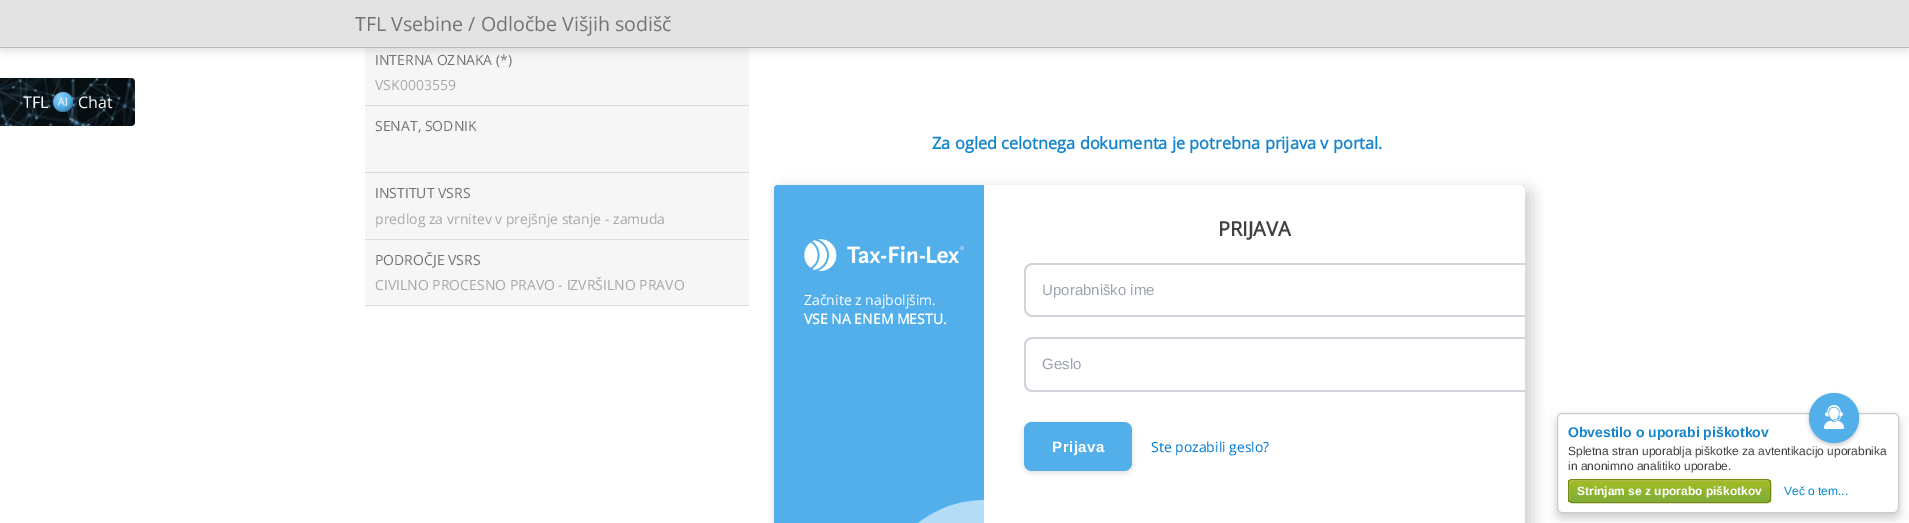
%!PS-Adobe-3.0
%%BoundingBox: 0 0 1909 523
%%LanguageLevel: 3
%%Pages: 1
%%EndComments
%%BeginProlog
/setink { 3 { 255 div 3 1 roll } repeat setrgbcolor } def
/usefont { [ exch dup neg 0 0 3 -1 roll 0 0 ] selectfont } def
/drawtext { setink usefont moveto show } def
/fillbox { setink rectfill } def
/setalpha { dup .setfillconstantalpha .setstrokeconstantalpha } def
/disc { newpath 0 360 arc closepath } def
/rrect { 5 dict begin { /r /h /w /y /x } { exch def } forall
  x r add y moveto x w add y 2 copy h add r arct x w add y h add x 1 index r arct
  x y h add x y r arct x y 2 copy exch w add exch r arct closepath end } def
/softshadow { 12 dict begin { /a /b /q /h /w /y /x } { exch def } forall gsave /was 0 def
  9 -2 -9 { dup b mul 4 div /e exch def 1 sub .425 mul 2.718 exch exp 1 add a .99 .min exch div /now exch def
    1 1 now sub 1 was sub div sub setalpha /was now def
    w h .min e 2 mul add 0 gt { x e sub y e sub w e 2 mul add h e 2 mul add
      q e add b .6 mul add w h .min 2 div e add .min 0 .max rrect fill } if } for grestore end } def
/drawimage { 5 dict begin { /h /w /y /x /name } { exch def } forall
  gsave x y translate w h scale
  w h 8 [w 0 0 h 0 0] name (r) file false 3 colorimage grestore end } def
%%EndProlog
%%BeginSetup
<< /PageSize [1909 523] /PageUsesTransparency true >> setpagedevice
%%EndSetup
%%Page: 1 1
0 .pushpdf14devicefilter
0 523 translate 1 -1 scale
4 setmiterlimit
0 0 1909 523 255 255 255 fillbox
(assets/img1.rgb) 0 78 135 48 drawimage
(TFL) 23 108 /OpenSans-Regular 16 255 255 255 drawtext
(assets/img2.rgb) 52 91 21 21 drawimage
(Chat) 78 108 /OpenSans-Regular 16 255 255 255 drawtext
365 48 384 257 246 246 246 fillbox
0 0 0 setink
0 4 1909 48 0 4 0.1 softshadow
0 0 1909 47 227 227 227 fillbox
0 47 1909 1 184 184 184 fillbox
(TFL Vsebine / Odločbe Višjih sodišč) 355 31 /OpenSans-Regular 19.6 115 115 115 drawtext
365 105 384 1 219 219 219 fillbox
(INTERNA OZNAKA \(*\)) 375 65 /OpenSans-Regular 14 115 115 115 drawtext
(VSK0003559) 375 90 /OpenSans-Regular 14 167 167 167 drawtext
365 172 384 1 219 219 219 fillbox
(SENAT, SODNIK) 375 131 /OpenSans-Regular 14 115 115 115 drawtext
365 239 384 1 219 219 219 fillbox
(INSTITUT VSRS) 375 198 /OpenSans-Regular 14 115 115 115 drawtext
(predlog za vrnitev v prejšnje stanje - zamuda) 375 224 /OpenSans-Regular 14 167 167 167 drawtext
365 305 384 1 219 219 219 fillbox
(PODROČJE VSRS) 375 265 /OpenSans-Regular 14 115 115 115 drawtext
(CIVILNO PROCESNO PRAVO - IZVRŠILNO PRAVO) 375 290 /OpenSans-Regular 14 167 167 167 drawtext
(Za ogled celotnega dokumenta je potrebna prijava v portal.) 932 149 /OpenSans-Bold 16.4 20 133 204 drawtext
gsave
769 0 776 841 rectclip
210 210 210 setink
778 189 755 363 6 7.5 1 softshadow
grestore
82 175 234 setink
774 185 751 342 4 rrect fill
(assets/img3.rgb) 918 500 66 23 drawimage
(assets/img4.rgb) 804 239 160 32 drawimage
(Začnite z najboljšim.) 804 305 /OpenSans-Regular 14 255 255 255 drawtext
(VSE NA ENEM MESTU.) 804 324 /OpenSans-Bold 14 255 255 255 drawtext
984 185 moveto 1521 185 lineto 1523 185 1525 187 1525 189 curveto 1525 523 lineto 1525 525 1523 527 1521 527 curveto 984 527 lineto closepath fill
(PRIJAVA) 1218 236 /OpenSans-Bold 20 64 64 65 drawtext
209 213 219 setink
1032 263 moveto 1028 263 1024 267 1024 271 curveto 1024 309 lineto 1024 313 1028 317 1032 317 curveto 1525 317 lineto 1525 315 lineto 1032 315 lineto 1029 315 1026 312 1026 309 curveto 1026 271 lineto 1026 268 1029 265 1032 265 curveto 1525 265 lineto 1525 263 lineto closepath fill
(Uporabniško ime) 1042 295 /LiberationSans-Regular 15 156 163 175 drawtext
209 213 219 setink
1032 337 moveto 1028 337 1024 341 1024 345 curveto 1024 384 lineto 1024 388 1028 392 1032 392 curveto 1525 392 lineto 1525 390 lineto 1032 390 lineto 1029 390 1026 387 1026 384 curveto 1026 345 lineto 1026 342 1029 339 1032 339 curveto 1525 339 lineto 1525 337 lineto closepath fill
(Geslo) 1042 369 /LiberationSans-Regular 15 156 163 175 drawtext
0 0 0 setink
1024 424 108 49 8 3 0.12 softshadow
82 175 234 setink
1024 422 108 49 8 rrect fill
/LiberationSans-Bold 15 usefont
255 255 255 setink
1052 452 moveto 0.5 0 (Prijava) ashow
(Ste pozabili geslo?) 1151 452 /OpenSans-Regular 14 0 120 212 drawtext
0 0 0 setink
1557 418 342 100 5 5 0.2 softshadow
255 255 255 setink
1557.5 413.5 341 99 4.5 rrect gsave fill grestore
204 204 204 setink
stroke
0 0 0 setink
1809 395 50 50 25 2 0.2 softshadow
82 175 234 setink
1834 418 25 disc fill
(assets/img5.rgb) 1823 405 22 24 drawimage
(Obvestilo o uporabi piškotkov) 1568 437 /LiberationSans-Bold 14 20 133 204 drawtext
(Spletna stran uporablja piškotke za avtentikacijo uporabnika) 1568 455 /LiberationSans-Regular 12 64 64 65 drawtext
(in anonimno analitiko uporabe.) 1568 470 /LiberationSans-Regular 12 64 64 65 drawtext
gsave
1568 479 203 24 4 rrect clip newpath
gsave 1568 480 moveto 1771 480 lineto 1771 502 lineto 1568 502 lineto closepath clip newpath
<< /ShadingType 2 /ColorSpace /DeviceRGB /Coords [1670 480 1670 502] /Extend [true true] /Function << /FunctionType 2 /Domain [0 1] /C0 [0.647 0.741 0.141] /C1 [0.49 0.675 0.22] /N 1 >> >> shfill grestore
grestore
0.3 setalpha
255 255 255 setink
1573 481 moveto 1769 481 lineto 1767 480 lineto 1571 480 lineto 1567 481 1569 488 1569 491 curveto 1569 493 1568 500 1570 501 curveto 1570 492 lineto 1570 489 1568 481 1573 481 curveto closepath fill
1 setalpha
119 136 17 setink
1568.5 479.5 202 23 3.5 rrect stroke
(Strinjam se z uporabo piškotkov) 1577 495 /LiberationSans-Bold 12 255 255 255 drawtext
(Več o tem...) 1784 495 /LiberationSans-Regular 12 0 136 204 drawtext
.poppdf14devicefilter showpage
%%EOF
